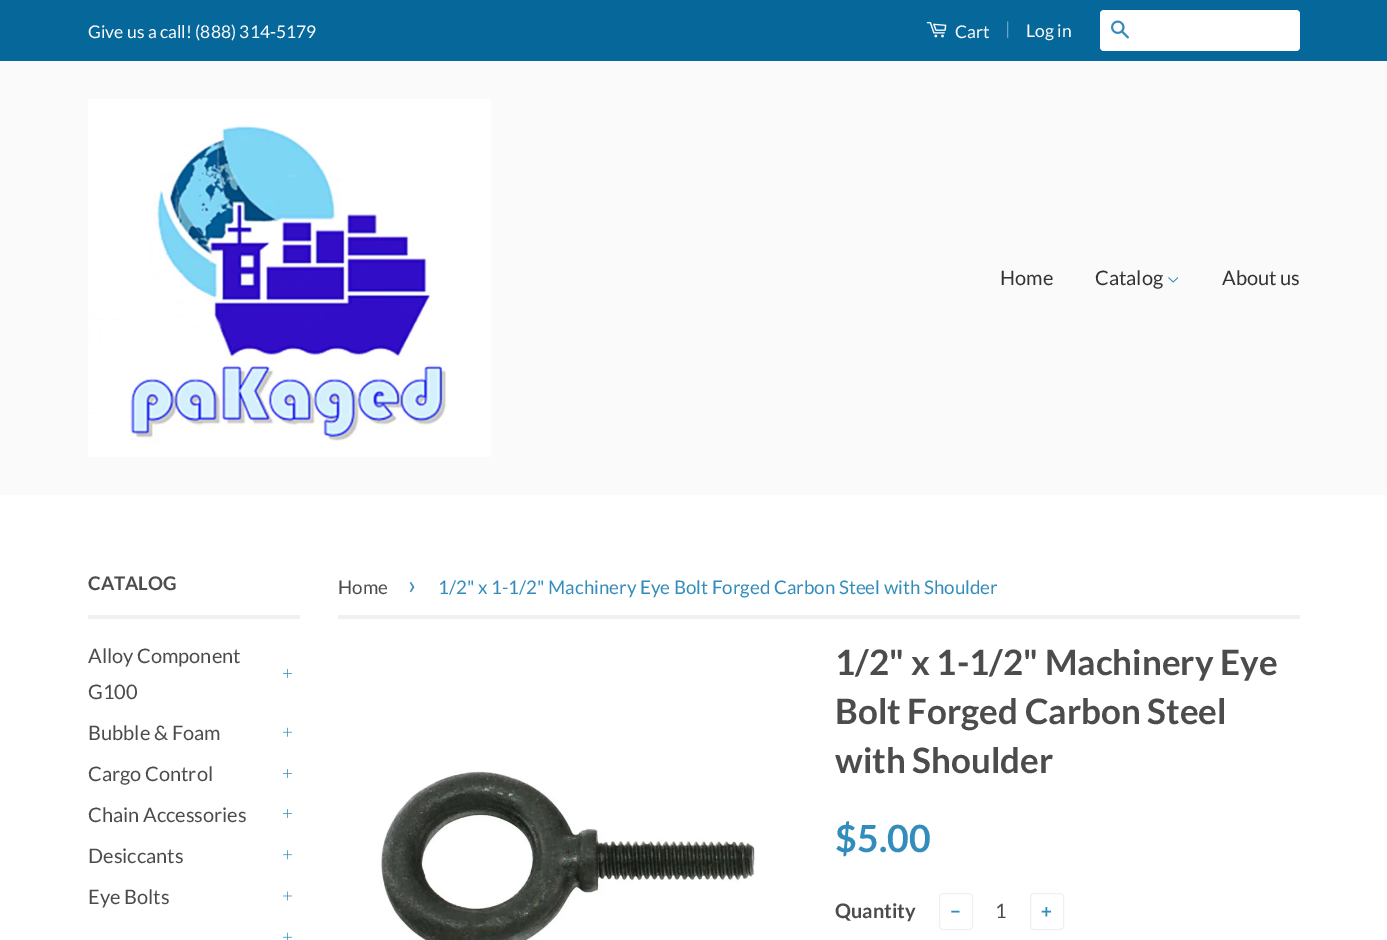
%!PS-Adobe-3.0
%%BoundingBox: 0 0 1387 940
%%LanguageLevel: 3
%%Pages: 1
%%EndComments
%%BeginProlog
/setink { 3 { 255 div 3 1 roll } repeat setrgbcolor } def
/usefont { [ exch dup neg 0 0 3 -1 roll 0 0 ] selectfont } def
/drawtext { setink usefont moveto show } def
/fillbox { setink rectfill } def
/rrect { 5 dict begin { /r /h /w /y /x } { exch def } forall
  x r add y moveto x w add y 2 copy h add r arct x w add y h add x 1 index r arct
  x y h add x y r arct x y 2 copy exch w add exch r arct closepath end } def
/drawimage { 5 dict begin { /h /w /y /x /name } { exch def } forall
  gsave x y translate w h scale
  w h 8 [w 0 0 h 0 0] name (r) file false 3 colorimage grestore end } def
%%EndProlog
%%BeginSetup
<< /PageSize [1387 940] >> setpagedevice
%%EndSetup
%%Page: 1 1
0 940 translate 1 -1 scale
4 setmiterlimit
0 0 1387 940 255 255 255 fillbox
0 0 1387 61 6 103 154 fillbox
(Give us a call! \(888\) 314-5179) 88 38 /Lato-Regular 17.5 255 255 255 drawtext
(assets/img1.rgb) 926 22 21 16 drawimage
(Cart) 955 38 /Lato-Regular 17.5 255 255 255 drawtext
(|) 1005 35 /Lato-Regular 17.5 106 164 194 drawtext
(Log in) 1026 37 /Lato-Regular 17.5 255 255 255 drawtext
1100 10 200 41 4 rrect fill
(assets/img2.rgb) 1111 20 18 19 drawimage
0 61 1387 434 250 250 250 fillbox
(assets/img3.rgb) 88 99 403 358 drawimage
(Home) 1000 285 /Lato-Regular 20 51 51 51 drawtext
(Catalog) 1095 285 /Lato-Regular 20 51 51 51 drawtext
(assets/img4.rgb) 1168 277 11 6 drawimage
(About us) 1222 285 /Lato-Regular 20 51 51 51 drawtext
88 615 212 4 240 240 240 fillbox
(CATALOG) 88 590 /Lato-Bold 18.75 76 76 76 drawtext
(Alloy Component) 88 663 /Lato-Regular 20 76 76 76 drawtext
(G100) 88 699 /Lato-Regular 20 76 76 76 drawtext
(assets/img5.rgb) 283 669 9 9 drawimage
(Bubble & Foam) 88 740 /Lato-Regular 20 76 76 76 drawtext
(assets/img6.rgb) 283 727 9 10 drawimage
(Cargo Control) 88 781 /Lato-Regular 20 76 76 76 drawtext
(assets/img5.rgb) 283 769 9 9 drawimage
(Chain Accessories) 88 822 /Lato-Regular 20 76 76 76 drawtext
(assets/img5.rgb) 283 809 9 9 drawimage
(Desiccants) 88 863 /Lato-Regular 20 76 76 76 drawtext
(assets/img7.rgb) 283 850 9 10 drawimage
(Eye Bolts) 88 904 /Lato-Regular 20 76 76 76 drawtext
(assets/img8.rgb) 283 891 9 10 drawimage
(assets/img9.rgb) 283 932 9 8 drawimage
338 615 962 4 240 240 240 fillbox
(Home) 338 594 /Lato-Regular 18.75 76 76 76 drawtext
(›) 408 594 /Lato-Regular 26 51 141 188 drawtext
(1/2" x 1-1/2" Machinery Eye Bolt Forged Carbon Steel with Shoulder) 438 594 /Lato-Regular 18.75 51 141 188 drawtext
(assets/img10.rgb) 379 771 377 169 drawimage
(1/2" x 1-1/2" Machinery Eye) 835 675 /Lato-Bold 35 76 76 76 drawtext
(Bolt Forged Carbon Steel) 835 724 /Lato-Bold 35 76 76 76 drawtext
(with Shoulder) 835 773 /Lato-Bold 35 76 76 76 drawtext
($5.00) 835 852 /Lato-Bold 37.5 51 141 188 drawtext
(Quantity) 835 918 /Lato-Bold 20 76 76 76 drawtext
240 240 240 setink
939.5 893.5 33 36 3.5 rrect stroke
(−) 950 918 /Lato-Bold 18.75 51 141 188 drawtext
(1) 995 918 /Lato-Regular 20 76 76 76 drawtext
240 240 240 setink
1030.5 893.5 33 36 3.5 rrect stroke
(+) 1041 918 /Lato-Bold 18.75 51 141 188 drawtext
showpage
%%EOF
